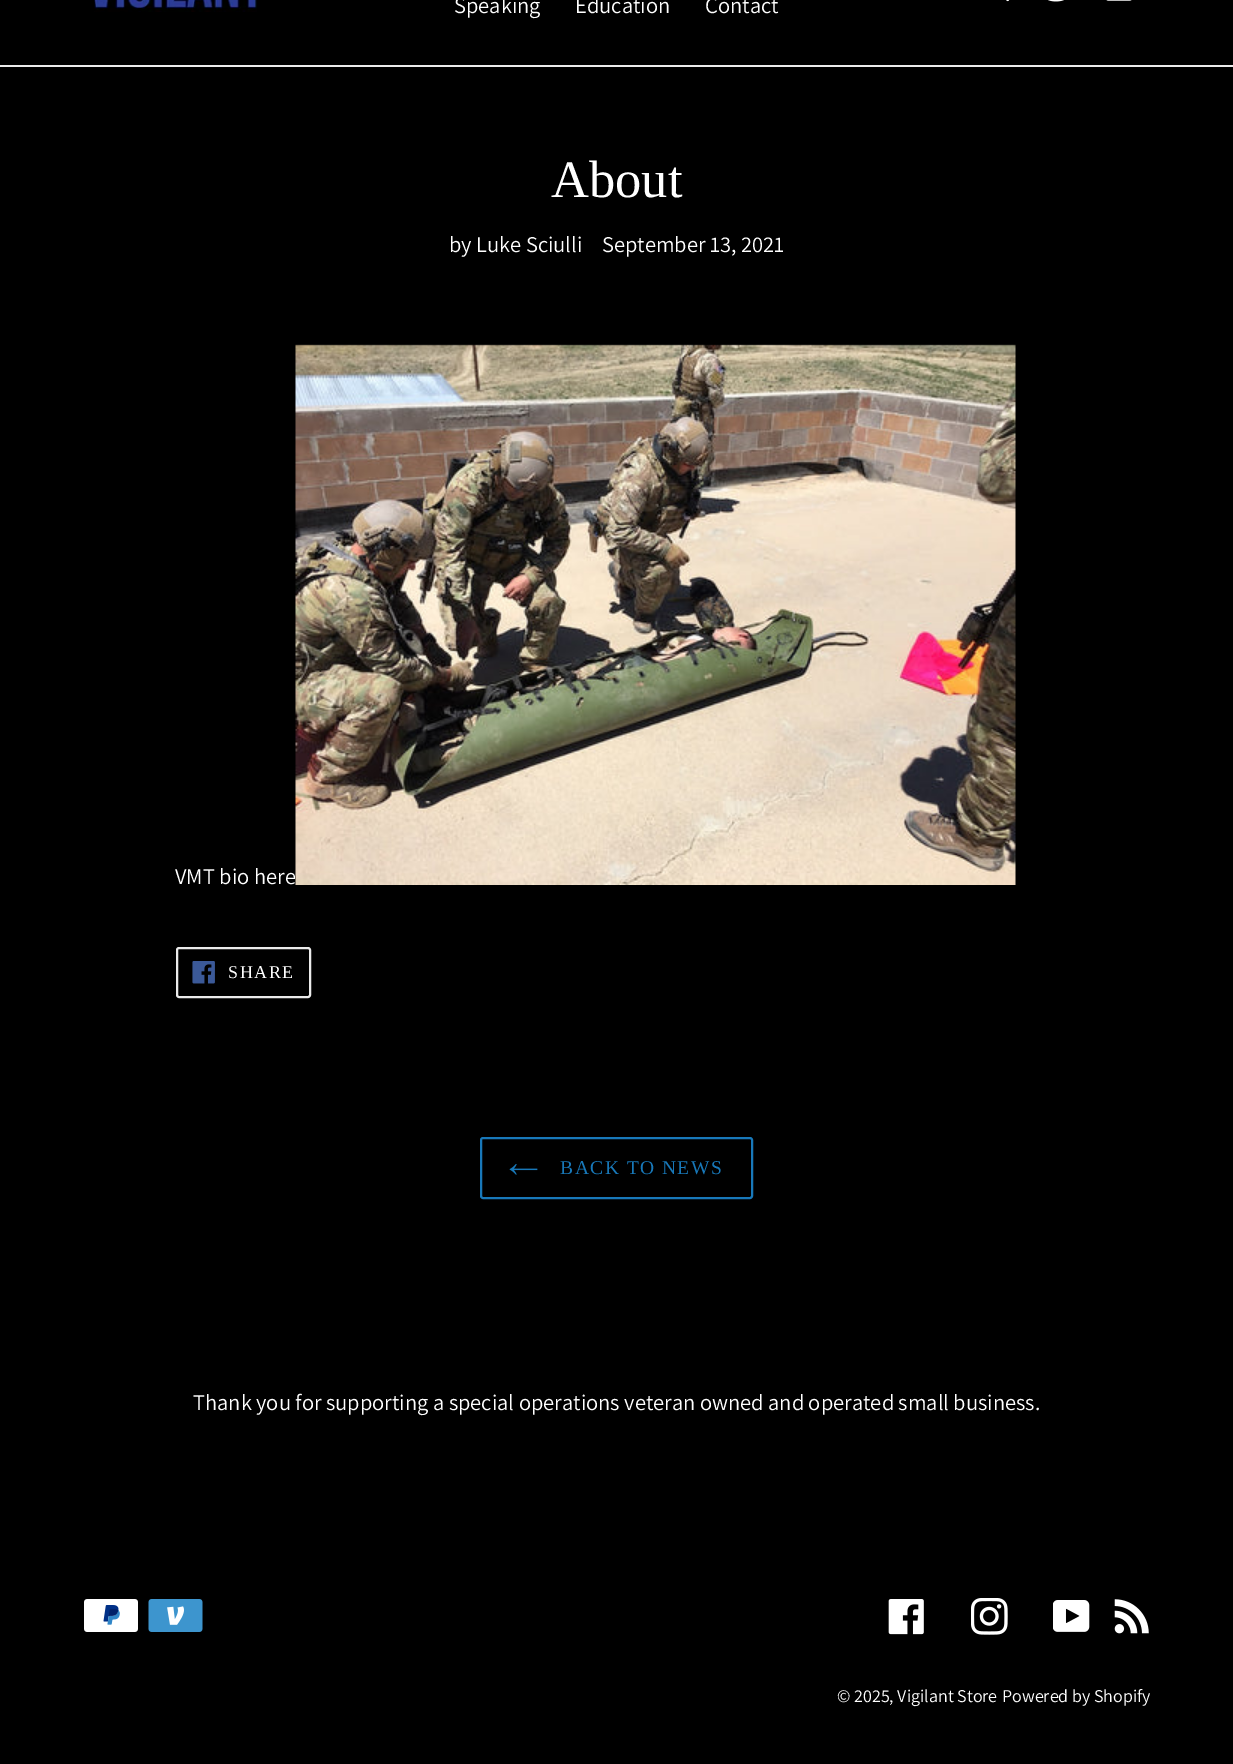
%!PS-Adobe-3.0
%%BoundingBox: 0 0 1233 1764
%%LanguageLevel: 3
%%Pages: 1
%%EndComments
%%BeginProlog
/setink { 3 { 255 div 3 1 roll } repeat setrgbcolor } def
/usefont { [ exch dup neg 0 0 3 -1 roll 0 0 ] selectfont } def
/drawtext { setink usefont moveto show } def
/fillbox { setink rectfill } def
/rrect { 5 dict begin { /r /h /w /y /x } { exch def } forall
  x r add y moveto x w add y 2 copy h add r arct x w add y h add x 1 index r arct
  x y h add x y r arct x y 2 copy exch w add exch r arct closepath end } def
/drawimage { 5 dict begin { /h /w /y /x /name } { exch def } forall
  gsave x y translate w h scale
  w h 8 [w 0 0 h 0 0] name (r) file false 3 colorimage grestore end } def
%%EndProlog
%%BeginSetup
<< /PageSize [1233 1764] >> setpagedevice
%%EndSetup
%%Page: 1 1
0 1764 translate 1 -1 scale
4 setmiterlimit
0 0 1233 1764 0 0 0 fillbox
0 65 1233 2 235 235 235 fillbox
(assets/img1.rgb) 94 0 163 12 drawimage
(Speaking) 454 13 /Assistant-Regular 22.5 255 255 255 drawtext
(Education) 575 13 /Assistant-Regular 22.5 255 255 255 drawtext
(Contact) 705 13 /Assistant-Regular 22.5 255 255 255 drawtext
(assets/img2.rgb) 1006 0 4 2 drawimage
(assets/img3.rgb) 1048 0 16 2 drawimage
(assets/img4.rgb) 1106 0 26 1 drawimage
(About) 551 197 /LiberationSerif-Regular 52.5 255 255 255 drawtext
(by Luke Sciulli) 449 252 /Assistant-Regular 22.5 255 255 255 drawtext
(September 13, 2021) 602 252 /Assistant-Regular 22.5 255 255 255 drawtext
(VMT bio here) 175 884 /Assistant-Regular 22.5 255 255 255 drawtext
(assets/img5.rgb) 295 344 721 541 drawimage
235 235 235 setink
2 setlinewidth
177 948 133 49 2 rrect stroke
(assets/img6.rgb) 192 961 23 23 drawimage
/LiberationSerif-Regular 18 usefont
255 255 255 setink
228 978 moveto 1.5 0 (SHARE) ashow
24 120 185 setink
481 1138 271 60 2 rrect stroke
(assets/img7.rgb) 509 1164 29 11 drawimage
/LiberationSerif-Regular 19.5 usefont
560 1174 moveto 1.5 0 (BACK TO NEWS) ashow
(Thank you for supporting a special operations veteran owned and operated small business.) 193 1410 /Assistant-Regular 22.5 255 255 255 drawtext
(assets/img8.rgb) 84 1599 54 33 drawimage
(assets/img9.rgb) 148 1599 55 33 drawimage
(assets/img10.rgb) 888 1599 36 36 drawimage
(assets/img11.rgb) 971 1598 37 37 drawimage
(assets/img12.rgb) 1053 1600 37 32 drawimage
(assets/img13.rgb) 1114 1599 35 35 drawimage
(© 2025, Vigilant Store) 837 1702 /Assistant-Regular 18 255 255 255 drawtext
(Powered by Shopify) 1002 1702 /Assistant-Regular 18 255 255 255 drawtext
showpage
%%EOF
